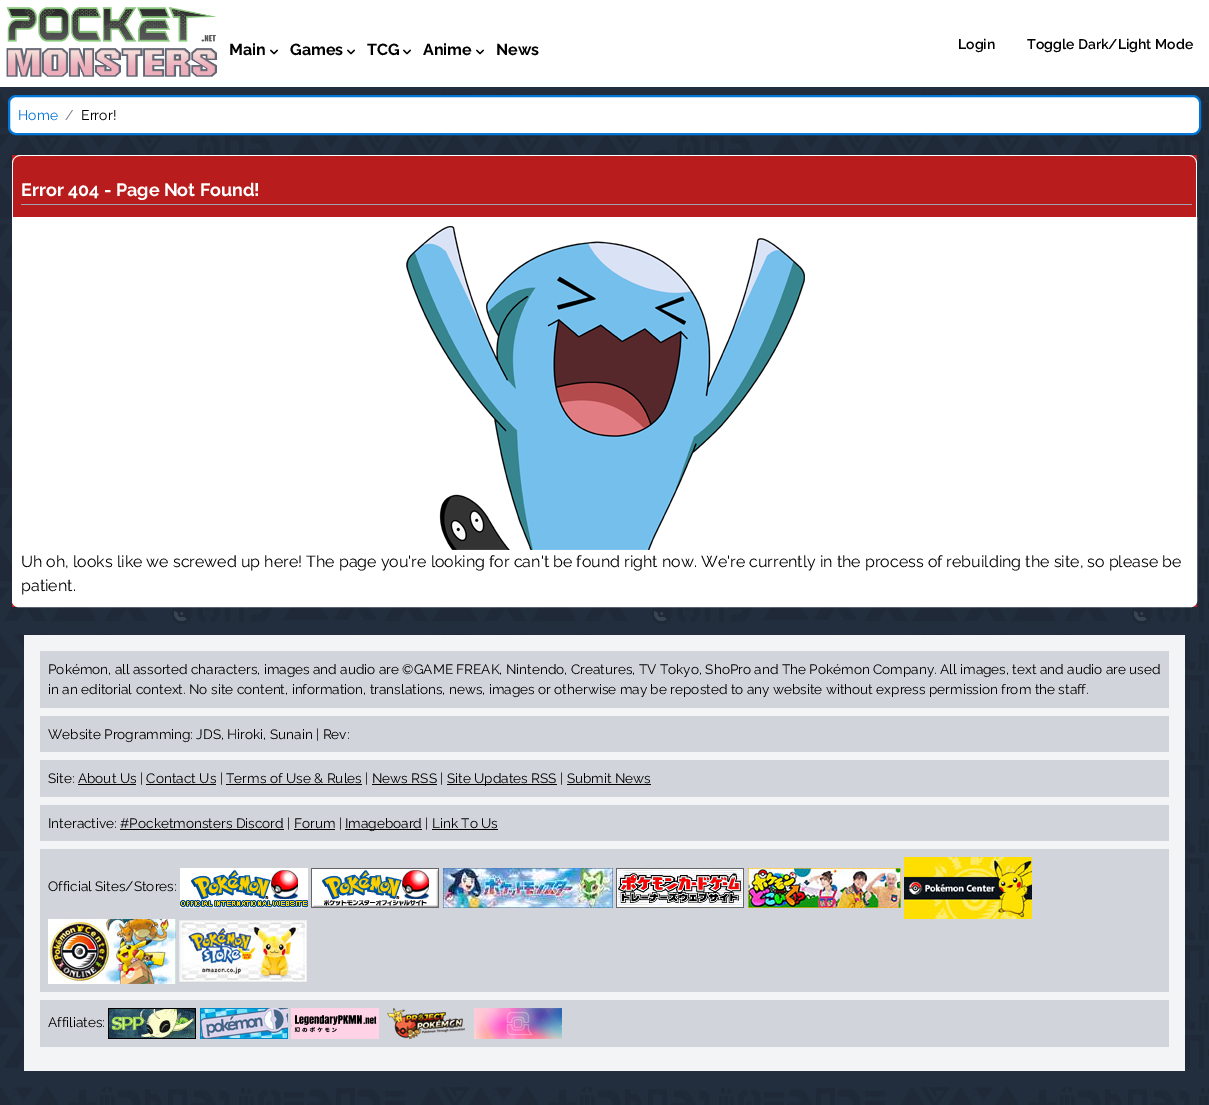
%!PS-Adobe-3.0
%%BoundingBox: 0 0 1209 1105
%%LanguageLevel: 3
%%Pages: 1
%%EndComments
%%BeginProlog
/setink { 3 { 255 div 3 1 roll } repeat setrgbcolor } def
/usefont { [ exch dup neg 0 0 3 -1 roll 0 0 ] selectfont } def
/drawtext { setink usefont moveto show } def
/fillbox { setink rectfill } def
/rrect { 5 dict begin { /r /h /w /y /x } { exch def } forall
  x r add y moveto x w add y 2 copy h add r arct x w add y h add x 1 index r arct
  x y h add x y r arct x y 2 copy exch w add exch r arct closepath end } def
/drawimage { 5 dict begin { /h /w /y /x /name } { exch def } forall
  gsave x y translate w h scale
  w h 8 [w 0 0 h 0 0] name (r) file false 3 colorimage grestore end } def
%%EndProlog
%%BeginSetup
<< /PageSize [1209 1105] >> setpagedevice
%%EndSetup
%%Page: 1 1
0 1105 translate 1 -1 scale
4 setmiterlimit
0 0 1209 1105 255 255 255 fillbox
(assets/img1.rgb) 0 87 1209 1018 drawimage
(assets/img2.rgb) 6 7 212 70 drawimage
(Main) 229 55 /Raleway-Bold 16 0 0 0 drawtext
(assets/img3.rgb) 270 49 8 6 drawimage
(Games) 290 55 /Raleway-Bold 16 0 0 0 drawtext
(assets/img3.rgb) 347 49 8 6 drawimage
(TCG) 367 55 /Raleway-Bold 16 0 0 0 drawtext
(assets/img3.rgb) 403 49 8 6 drawimage
(Anime) 423 55 /Raleway-Bold 16 0 0 0 drawtext
(assets/img3.rgb) 476 49 8 6 drawimage
(News) 496 55 /Raleway-Bold 16 0 0 0 drawtext
(Login) 958 49 /Raleway-SemiBold 14 0 0 0 drawtext
(Toggle Dark/Light Mode) 1027 49 /Raleway-SemiBold 14 0 0 0 drawtext
255 255 255 setink
9 96 1191 38 7 rrect gsave fill grestore
2 117 216 setink
2 setlinewidth
stroke
(Home) 18 120 /Raleway-Regular 14 2 117 216 drawtext
(/) 65 120 /Raleway-Regular 14 107 114 128 drawtext
(Error!) 81 120 /Raleway-Regular 14 0 0 0 drawtext
12 155 1185 452 185 28 28 fillbox
255 255 255 setink
20 155 moveto 1189 155 lineto 1193 155 1197 159 1197 163 curveto 1197 217 lineto 12 217 lineto 12 163 lineto 12 159 16 155 20 155 curveto closepath 20 156 moveto 1189 156 lineto 1193 156 1196 159 1196 163 curveto 1196 217 lineto 13 217 lineto 13 163 lineto 13 159 16 156 20 156 curveto closepath eofill
21 204 1171 1 156 163 175 fillbox
(Error 404 - Page Not Found!) 21 196 /Raleway-Bold 18 255 255 255 drawtext
12.5 217.5 moveto 1196.5 217.5 lineto 1196.5 601 lineto 1196.5 604 1194 606.5 1191 606.5 curveto 18 606.5 lineto 15 606.5 12.5 604 12.5 601 curveto closepath gsave fill grestore
1 setlinewidth
stroke
(assets/img4.rgb) 406 226 399 324 drawimage
(Uh oh, looks like we screwed up here! The page you're looking for can't be found right now. We're currently in the process of rebuilding the site, so please be) 21 567 /Raleway-Regular 16 0 0 0 drawtext
(patient.) 21 591 /Raleway-Regular 16 0 0 0 drawtext
24 635 1161 436 243 244 246 fillbox
40 651 1129 57 209 213 219 fillbox
(Pokémon, all assorted characters, images and audio are ©GAME FREAK, Nintendo, Creatures, TV Tokyo, ShoPro and The Pokémon Company. All images, text and audio are used) 48 674 /Raleway-Regular 13.6 0 0 0 drawtext
(in an editorial context. No site content, information, translations, news, images or otherwise may be reposted to any website without express permission from the staff.) 48 694 /Raleway-Regular 13.6 0 0 0 drawtext
40 716 1129 36 209 213 219 fillbox
(Website Programming: JDS, Hiroki, Sunain | Rev:) 48 739 /Raleway-Regular 13.6 0 0 0 drawtext
40 760 1129 37 209 213 219 fillbox
(Site: About Us | Contact Us | Terms of Use & Rules | News RSS |) 48 783 /Raleway-Regular 13.6 0 0 0 drawtext
447 784 110 1 0 0 0 fillbox
(Site Updates RSS | Submit News) 447 783 /Raleway-Regular 13.6 0 0 0 drawtext
78 784 58 1 0 0 0 fillbox
146 784 70 1 0 0 0 fillbox
226 784 136 1 0 0 0 fillbox
372 784 65 1 0 0 0 fillbox
567 784 84 1 0 0 0 fillbox
40 805 1129 36 209 213 219 fillbox
(Interactive: #Pocketmonsters Discord | Forum |) 48 828 /Raleway-Regular 13.6 0 0 0 drawtext
345 829 77 1 0 0 0 fillbox
(Imageboard | Link To Us) 345 828 /Raleway-Regular 13.6 0 0 0 drawtext
120 829 164 1 0 0 0 fillbox
294 829 41 1 0 0 0 fillbox
432 829 66 1 0 0 0 fillbox
40 849 1129 143 209 213 219 fillbox
(Official Sites/Stores:) 48 891 /Raleway-Regular 13.6 0 0 0 drawtext
(assets/img5.rgb) 180 868 128 40 drawimage
(assets/img6.rgb) 311 868 128 40 drawimage
(assets/img7.rgb) 443 868 170 40 drawimage
(assets/img8.rgb) 616 868 128 40 drawimage
(assets/img9.rgb) 748 868 153 40 drawimage
(assets/img10.rgb) 904 857 128 62 drawimage
(assets/img11.rgb) 48 919 128 65 drawimage
(assets/img12.rgb) 179 920 128 62 drawimage
40 1000 1129 47 209 213 219 fillbox
(Affiliates:) 48 1027 /Raleway-Regular 13.6 0 0 0 drawtext
(assets/img13.rgb) 108 1008 88 31 drawimage
(assets/img14.rgb) 200 1008 88 31 drawimage
(assets/img15.rgb) 291 1008 88 31 drawimage
(assets/img16.rgb) 387 1008 78 31 drawimage
(assets/img17.rgb) 474 1008 88 31 drawimage
showpage
%%EOF
